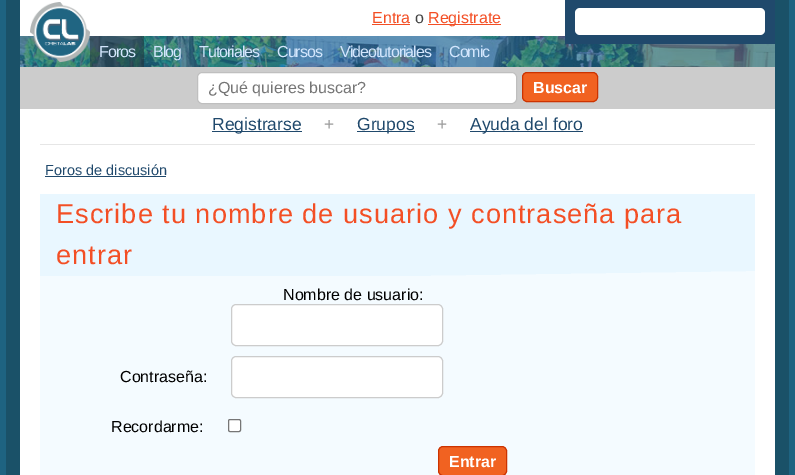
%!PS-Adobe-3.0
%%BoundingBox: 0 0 795 475
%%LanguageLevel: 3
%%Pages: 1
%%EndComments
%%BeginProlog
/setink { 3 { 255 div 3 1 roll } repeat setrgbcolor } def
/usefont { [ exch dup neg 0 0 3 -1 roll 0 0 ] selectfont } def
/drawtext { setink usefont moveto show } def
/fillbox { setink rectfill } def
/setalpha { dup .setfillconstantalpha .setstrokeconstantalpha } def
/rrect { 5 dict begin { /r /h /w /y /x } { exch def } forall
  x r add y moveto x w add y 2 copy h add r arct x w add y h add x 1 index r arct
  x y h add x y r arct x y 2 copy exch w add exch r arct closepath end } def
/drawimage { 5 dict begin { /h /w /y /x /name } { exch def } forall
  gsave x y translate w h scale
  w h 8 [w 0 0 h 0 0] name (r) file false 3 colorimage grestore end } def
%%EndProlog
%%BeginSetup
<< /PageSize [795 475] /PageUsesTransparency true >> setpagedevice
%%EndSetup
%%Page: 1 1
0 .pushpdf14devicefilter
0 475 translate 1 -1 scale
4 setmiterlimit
0 0 795 475 30 99 129 fillbox
20 0 755 475 255 255 255 fillbox
775 0 14 475 26 81 104 fillbox
6 0 14 475 26 81 104 fillbox
(assets/img2.rgb) 20 36 755 31 drawimage
(assets/img1.rgb) 30 2 60 60 drawimage
(Entra) 372 23 /LiberationSans-Regular 16 243 79 37 drawtext
372 24 38 1 243 79 37 fillbox
(o) 415 23 /LiberationSans-Regular 16 68 68 68 drawtext
428 24 73 1 243 79 37 fillbox
(Registrate) 428 23 /LiberationSans-Regular 16 243 79 37 drawtext
565 0 210 44 32 73 108 fillbox
255 255 255 setink
575 8 190 27 5 rrect fill
0.5 setalpha
90 36 54 31 36 44 51 fillbox
1 setalpha
211 230 253 setink
99 57 moveto -1 0 (Foros) ashow
153 57 moveto -1 0 (Blog) ashow
199 57 moveto -1 0 (Tutoriales) ashow
277 57 moveto -1 0 (Cursos) ashow
340 57 moveto -1 0 (Videotutoriales) ashow
449 57 moveto -1 0 (Comic) ashow
20 67 755 42 204 204 204 fillbox
255 255 255 setink
197.5 72.5 319 31 4.5 rrect gsave fill grestore
191 191 191 setink
stroke
(¿Qué quieres buscar?) 208 93 /LiberationSans-Regular 16 117 117 117 drawtext
241 98 33 setink
522.5 72.5 75 29 4.5 rrect gsave fill grestore
204 51 0 setink
stroke
(Buscar) 533 93 /LiberationSans-Bold 16 255 255 255 drawtext
40 144 715 1 230 230 230 fillbox
212 131 90 1 32 73 108 fillbox
(Registrarse) 212 130 /LiberationSans-Regular 17.5 32 73 108 drawtext
(+) 324 130 /LiberationSans-Regular 17.5 153 153 153 drawtext
357 131 58 1 32 73 108 fillbox
(Grupos) 357 130 /LiberationSans-Regular 17.5 32 73 108 drawtext
(+) 437 130 /LiberationSans-Regular 17.5 153 153 153 drawtext
470 131 113 1 32 73 108 fillbox
(Ayuda del foro) 470 130 /LiberationSans-Regular 17.5 32 73 108 drawtext
(Foros de discusión) 45 175 /LiberationSans-Regular 14.5 32 73 108 drawtext
45 176 121 1 32 73 108 fillbox
40 194 715 82 233 247 255 fillbox
(assets/img3.rgb) 431 271 324 5 drawimage
/LiberationSans-Regular 27.2 usefont
243 79 37 setink
56 223 moveto 1 0 (Escribe tu nombre de usuario y contraseña para) ashow
56 264 moveto 1 0 (entrar) ashow
40 276 715 199 244 251 255 fillbox
(Nombre de usuario:) 283 300 /LiberationSans-Regular 16 0 0 0 drawtext
255 255 255 setink
231.5 304.5 211 41 4.5 rrect gsave fill grestore
204 204 204 setink
stroke
(Contraseña:) 120 382 /LiberationSans-Regular 16 0 0 0 drawtext
255 255 255 setink
231.5 356.5 211 41 4.5 rrect gsave fill grestore
204 204 204 setink
stroke
(Recordarme:) 111 432 /LiberationSans-Regular 16 0 0 0 drawtext
255 255 255 setink
228.5 419.5 12 12 1.5 rrect gsave fill grestore
118 118 118 setink
stroke
241 98 33 setink
438.5 446.5 68 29 4.5 rrect gsave fill grestore
204 51 0 setink
stroke
(Entrar) 449 467 /LiberationSans-Bold 16 255 255 255 drawtext
.poppdf14devicefilter showpage
%%EOF
